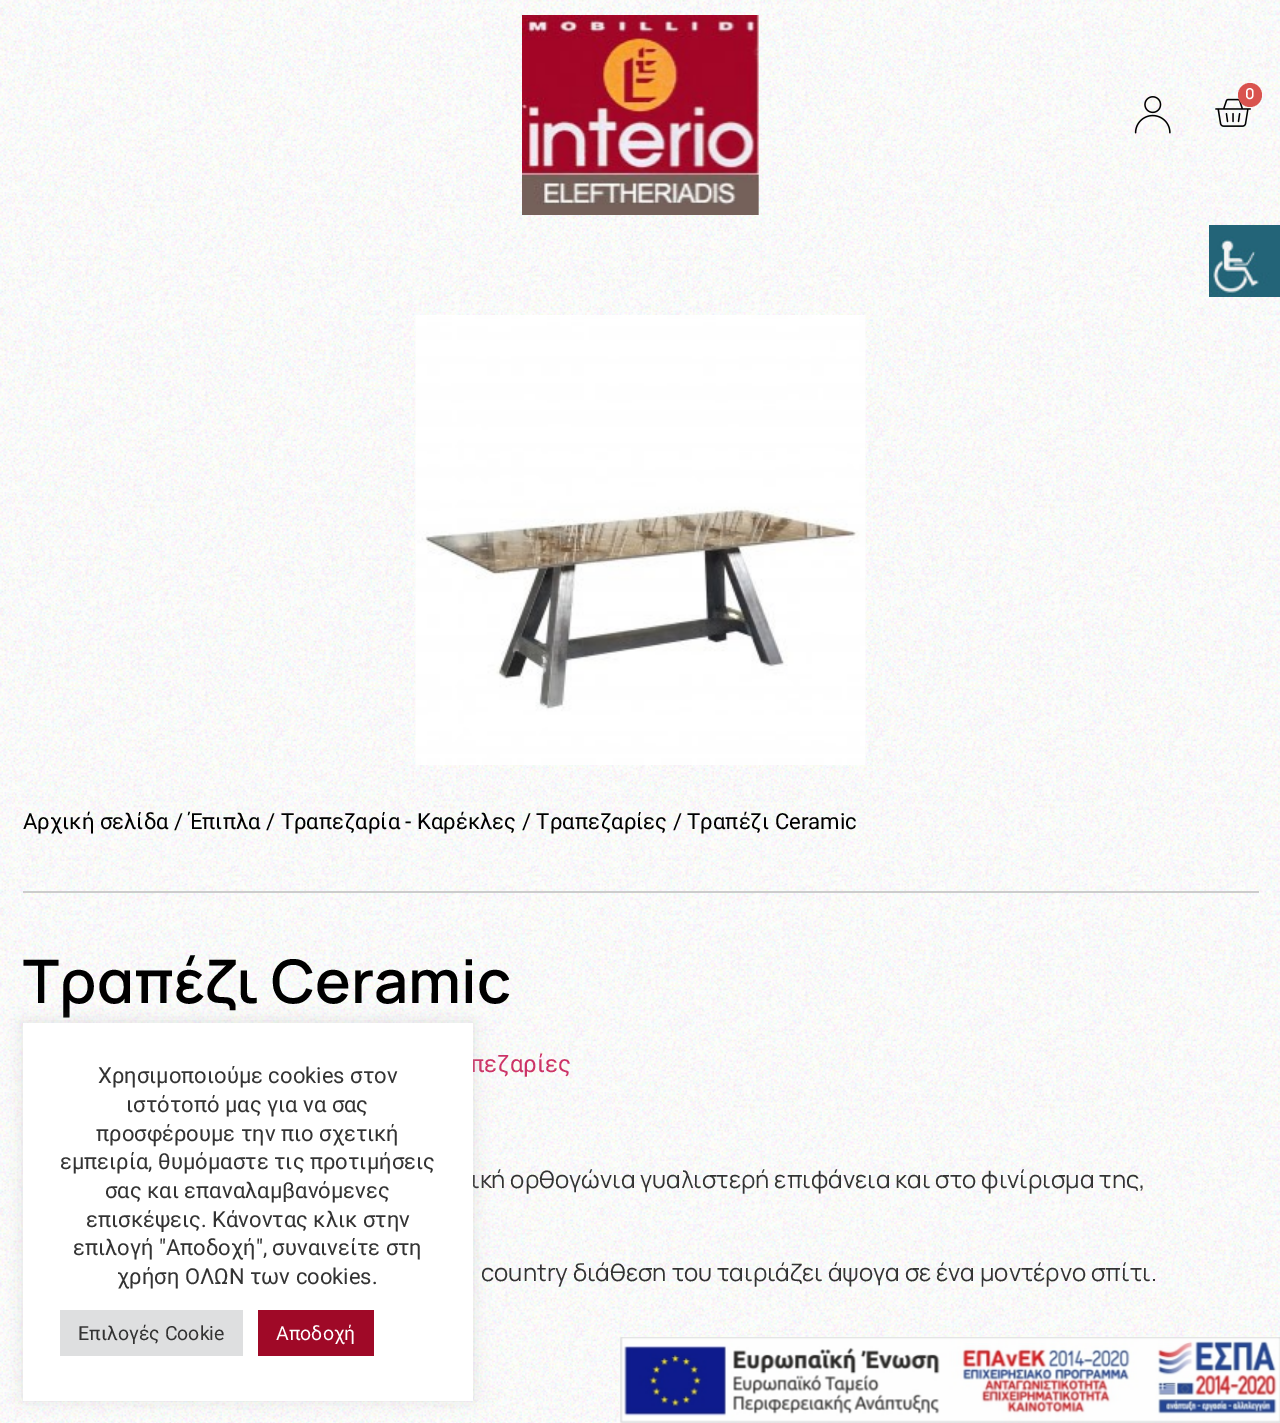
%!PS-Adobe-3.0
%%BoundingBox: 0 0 1280 1423
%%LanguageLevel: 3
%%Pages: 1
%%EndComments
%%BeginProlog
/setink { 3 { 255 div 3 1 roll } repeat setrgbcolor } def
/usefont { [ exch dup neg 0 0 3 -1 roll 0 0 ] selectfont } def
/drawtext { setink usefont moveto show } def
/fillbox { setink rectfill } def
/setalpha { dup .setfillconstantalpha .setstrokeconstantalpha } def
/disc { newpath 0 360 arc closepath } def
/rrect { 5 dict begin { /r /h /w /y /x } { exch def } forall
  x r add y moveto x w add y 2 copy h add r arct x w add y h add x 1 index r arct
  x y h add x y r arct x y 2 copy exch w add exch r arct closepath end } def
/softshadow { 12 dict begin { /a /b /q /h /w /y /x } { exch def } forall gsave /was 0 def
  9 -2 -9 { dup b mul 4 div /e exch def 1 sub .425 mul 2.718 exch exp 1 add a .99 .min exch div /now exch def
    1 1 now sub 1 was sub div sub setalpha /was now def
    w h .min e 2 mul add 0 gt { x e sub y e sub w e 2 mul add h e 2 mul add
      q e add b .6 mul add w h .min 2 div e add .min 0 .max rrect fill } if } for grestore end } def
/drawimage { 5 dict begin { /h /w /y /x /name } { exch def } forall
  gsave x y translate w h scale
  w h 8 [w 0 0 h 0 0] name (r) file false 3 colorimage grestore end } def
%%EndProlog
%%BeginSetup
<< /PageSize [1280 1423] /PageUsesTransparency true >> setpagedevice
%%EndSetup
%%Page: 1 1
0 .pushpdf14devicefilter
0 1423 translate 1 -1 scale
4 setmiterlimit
0 0 1280 1423 255 255 255 fillbox
(assets/img1.rgb) 0 0 1280 1423 drawimage
(assets/img2.rgb) 522 15 237 200 drawimage
(assets/img3.rgb) 1215 98 36 29 drawimage
217 83 79 setink
1250 95 12 disc fill
(0) 1245 99 /Manrope-SemiBold 15 255 255 255 drawtext
(assets/img4.rgb) 1134 96 37 38 drawimage
(assets/img5.rgb) 1209 225 71 72 drawimage
(assets/img6.rgb) 415 315 451 450 drawimage
(Αρχική σελίδα / Έπιπλα / Τραπεζαρία - Καρέκλες / Τραπεζαρίες / Τραπέζι Ceramic) 23 829 /Roboto-Regular 22.1 0 0 0 drawtext
23 891 1236 2 204 204 204 fillbox
(Τραπέζι Ceramic) 23 1003 /Manrope-SemiBold 60 0 0 0 drawtext
(πεζαρίες) 470 1072 /Roboto-Regular 24 204 51 102 drawtext
(ική ορθογώνια γυαλιστερή επιφάνεια και στο φινίρισμα της,) 471 1188 /Manrope-Regular 24 51 51 51 drawtext
(country διάθεση του ταιριάζει άψογα σε ένα μοντέρνο σπίτι.) 481 1281 /Manrope-Regular 24 51 51 51 drawtext
172 171 171 setink
23 1022 450 378 0 7.5 0.3 softshadow
23 1023 450 378 255 255 255 fillbox
(Χρησιμοποιούμε cookies στον) 98 1083 /Roboto-Regular 22 51 51 51 drawtext
(ιστότοπό μας για να σας) 126 1112 /Roboto-Regular 22 51 51 51 drawtext
(προσφέρουμε την πιο σχετική) 96 1141 /Roboto-Regular 22 51 51 51 drawtext
(εμπειρία, θυμόμαστε τις προτιμήσεις) 60 1169 /Roboto-Regular 22 51 51 51 drawtext
(σας και επαναλαμβανόμενες) 105 1198 /Roboto-Regular 22 51 51 51 drawtext
(επισκέψεις. Κάνοντας κλικ στην) 86 1227 /Roboto-Regular 22 51 51 51 drawtext
(επιλογή "Αποδοχή", συναινείτε στη) 73 1255 /Roboto-Regular 22 51 51 51 drawtext
(χρήση ΟΛΩΝ των cookies.) 117 1284 /Roboto-Regular 22 51 51 51 drawtext
60 1310 183 46 222 223 224 fillbox
(Επιλογές Cookie) 78 1340 /Roboto-Regular 19.5 51 51 51 drawtext
258 1310 116 46 159 9 39 fillbox
(Αποδοχή) 276 1340 /Roboto-Regular 19.5 255 255 255 drawtext
(assets/img7.rgb) 619 1337 661 86 drawimage
.poppdf14devicefilter showpage
%%EOF
